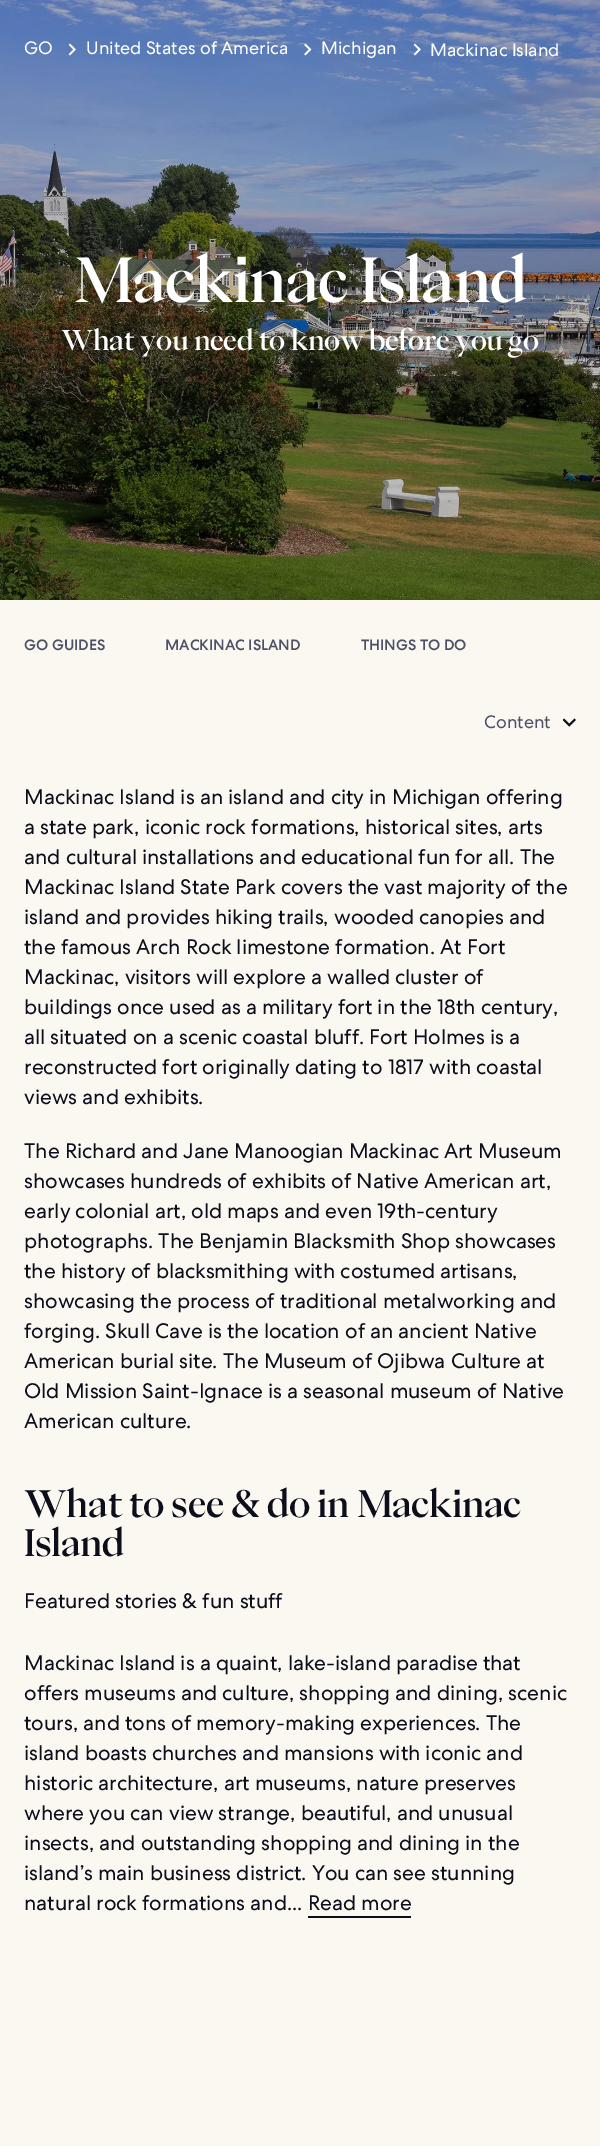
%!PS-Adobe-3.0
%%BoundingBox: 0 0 600 2146
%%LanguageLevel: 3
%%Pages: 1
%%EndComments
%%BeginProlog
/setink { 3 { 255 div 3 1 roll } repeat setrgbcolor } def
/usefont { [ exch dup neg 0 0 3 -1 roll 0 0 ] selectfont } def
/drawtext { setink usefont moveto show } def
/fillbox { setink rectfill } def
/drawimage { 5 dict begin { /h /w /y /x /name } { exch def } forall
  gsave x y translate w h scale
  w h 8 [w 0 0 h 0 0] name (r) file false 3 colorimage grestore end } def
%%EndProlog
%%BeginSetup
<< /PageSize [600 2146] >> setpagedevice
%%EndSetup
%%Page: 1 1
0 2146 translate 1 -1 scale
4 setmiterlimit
0 0 600 2146 251 248 241 fillbox
(assets/img1.rgb) 0 0 600 600 drawimage
(GO) 24 54 /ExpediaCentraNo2-Regular 18 255 255 255 drawtext
(assets/img2.rgb) 68 43 8 13 drawimage
(United States of America) 86 54 /ExpediaCentraNo2-Regular 18 255 255 255 drawtext
(assets/img3.rgb) 304 43 8 13 drawimage
(Michigan) 321 54 /ExpediaCentraNo2-Regular 18 255 255 255 drawtext
(assets/img4.rgb) 413 43 8 13 drawimage
(Mackinac Island) 430 56 /ExpediaCentraNo2-Regular 18 255 255 255 drawtext
/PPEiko-Medium 60 usefont
74 302 moveto -0.6 0 (Mackinac Island) ashow
/PPEiko-Medium 27 usefont
61 350 moveto -0.25 0 (What you need to know before you go) ashow
(GO GUIDES) 24 650 /ExpediaCentraNo2-Medium 15 77 81 103 drawtext
(MACKINAC ISLAND) 165 650 /ExpediaCentraNo2-Medium 15 77 81 103 drawtext
(THINGS TO DO) 361 650 /ExpediaCentraNo2-Medium 15 77 81 103 drawtext
(Content) 484 728 /ExpediaCentraNo2-Regular 18 77 81 103 drawtext
(assets/img5.rgb) 563 718 13 9 drawimage
(Mackinac Island is an island and city in Michigan offering) 24 804 /ExpediaCentraNo2-Regular 21 12 14 28 drawtext
(a state park, iconic rock formations, historical sites, arts) 24 834 /ExpediaCentraNo2-Regular 21 12 14 28 drawtext
(and cultural installations and educational fun for all. The) 24 864 /ExpediaCentraNo2-Regular 21 12 14 28 drawtext
(Mackinac Island State Park covers the vast majority of the) 24 894 /ExpediaCentraNo2-Regular 21 12 14 28 drawtext
(island and provides hiking trails, wooded canopies and) 24 924 /ExpediaCentraNo2-Regular 21 12 14 28 drawtext
(the famous Arch Rock limestone formation. At Fort) 24 954 /ExpediaCentraNo2-Regular 21 12 14 28 drawtext
(Mackinac, visitors will explore a walled cluster of) 24 984 /ExpediaCentraNo2-Regular 21 12 14 28 drawtext
(buildings once used as a military fort in the 18th century,) 24 1014 /ExpediaCentraNo2-Regular 21 12 14 28 drawtext
(all situated on a scenic coastal bluff. Fort Holmes is a) 24 1044 /ExpediaCentraNo2-Regular 21 12 14 28 drawtext
(reconstructed fort originally dating to 1817 with coastal) 24 1074 /ExpediaCentraNo2-Regular 21 12 14 28 drawtext
(views and exhibits.) 24 1104 /ExpediaCentraNo2-Regular 21 12 14 28 drawtext
(The Richard and Jane Manoogian Mackinac Art Museum) 24 1158 /ExpediaCentraNo2-Regular 21 12 14 28 drawtext
(showcases hundreds of exhibits of Native American art,) 24 1188 /ExpediaCentraNo2-Regular 21 12 14 28 drawtext
(early colonial art, old maps and even 19th-century) 24 1218 /ExpediaCentraNo2-Regular 21 12 14 28 drawtext
(photographs. The Benjamin Blacksmith Shop showcases) 24 1248 /ExpediaCentraNo2-Regular 21 12 14 28 drawtext
(the history of blacksmithing with costumed artisans,) 24 1278 /ExpediaCentraNo2-Regular 21 12 14 28 drawtext
(showcasing the process of traditional metalworking and) 24 1308 /ExpediaCentraNo2-Regular 21 12 14 28 drawtext
(forging. Skull Cave is the location of an ancient Native) 24 1338 /ExpediaCentraNo2-Regular 21 12 14 28 drawtext
(American burial site. The Museum of Ojibwa Culture at) 24 1368 /ExpediaCentraNo2-Regular 21 12 14 28 drawtext
(Old Mission Saint-Ignace is a seasonal museum of Native) 24 1398 /ExpediaCentraNo2-Regular 21 12 14 28 drawtext
(American culture.) 24 1428 /ExpediaCentraNo2-Regular 21 12 14 28 drawtext
/PPEiko-Medium 36 usefont
24 1517 moveto -0.35 0 (What to see & do in Mackinac) ashow
24 1556 moveto -0.35 0 (Island) ashow
(Featured stories & fun stuff) 24 1608 /ExpediaCentraNo2-Regular 21 12 14 28 drawtext
(Mackinac Island is a quaint, lake-island paradise that) 24 1670 /ExpediaCentraNo2-Regular 21 12 14 28 drawtext
(offers museums and culture, shopping and dining, scenic) 24 1700 /ExpediaCentraNo2-Regular 21 12 14 28 drawtext
(tours, and tons of memory-making experiences. The) 24 1730 /ExpediaCentraNo2-Regular 21 12 14 28 drawtext
(island boasts churches and mansions with iconic and) 24 1760 /ExpediaCentraNo2-Regular 21 12 14 28 drawtext
(historic architecture, art museums, nature preserves) 24 1790 /ExpediaCentraNo2-Regular 21 12 14 28 drawtext
(where you can view strange, beautiful, and unusual) 24 1820 /ExpediaCentraNo2-Regular 21 12 14 28 drawtext
(insects, and outstanding shopping and dining in the) 24 1850 /ExpediaCentraNo2-Regular 21 12 14 28 drawtext
(island’s main business district. You can see stunning) 24 1880 /ExpediaCentraNo2-Regular 21 12 14 28 drawtext
(natural rock formations and... Read more) 24 1910 /ExpediaCentraNo2-Regular 21 12 14 28 drawtext
308 1916 103 2 12 14 28 fillbox
showpage
%%EOF
